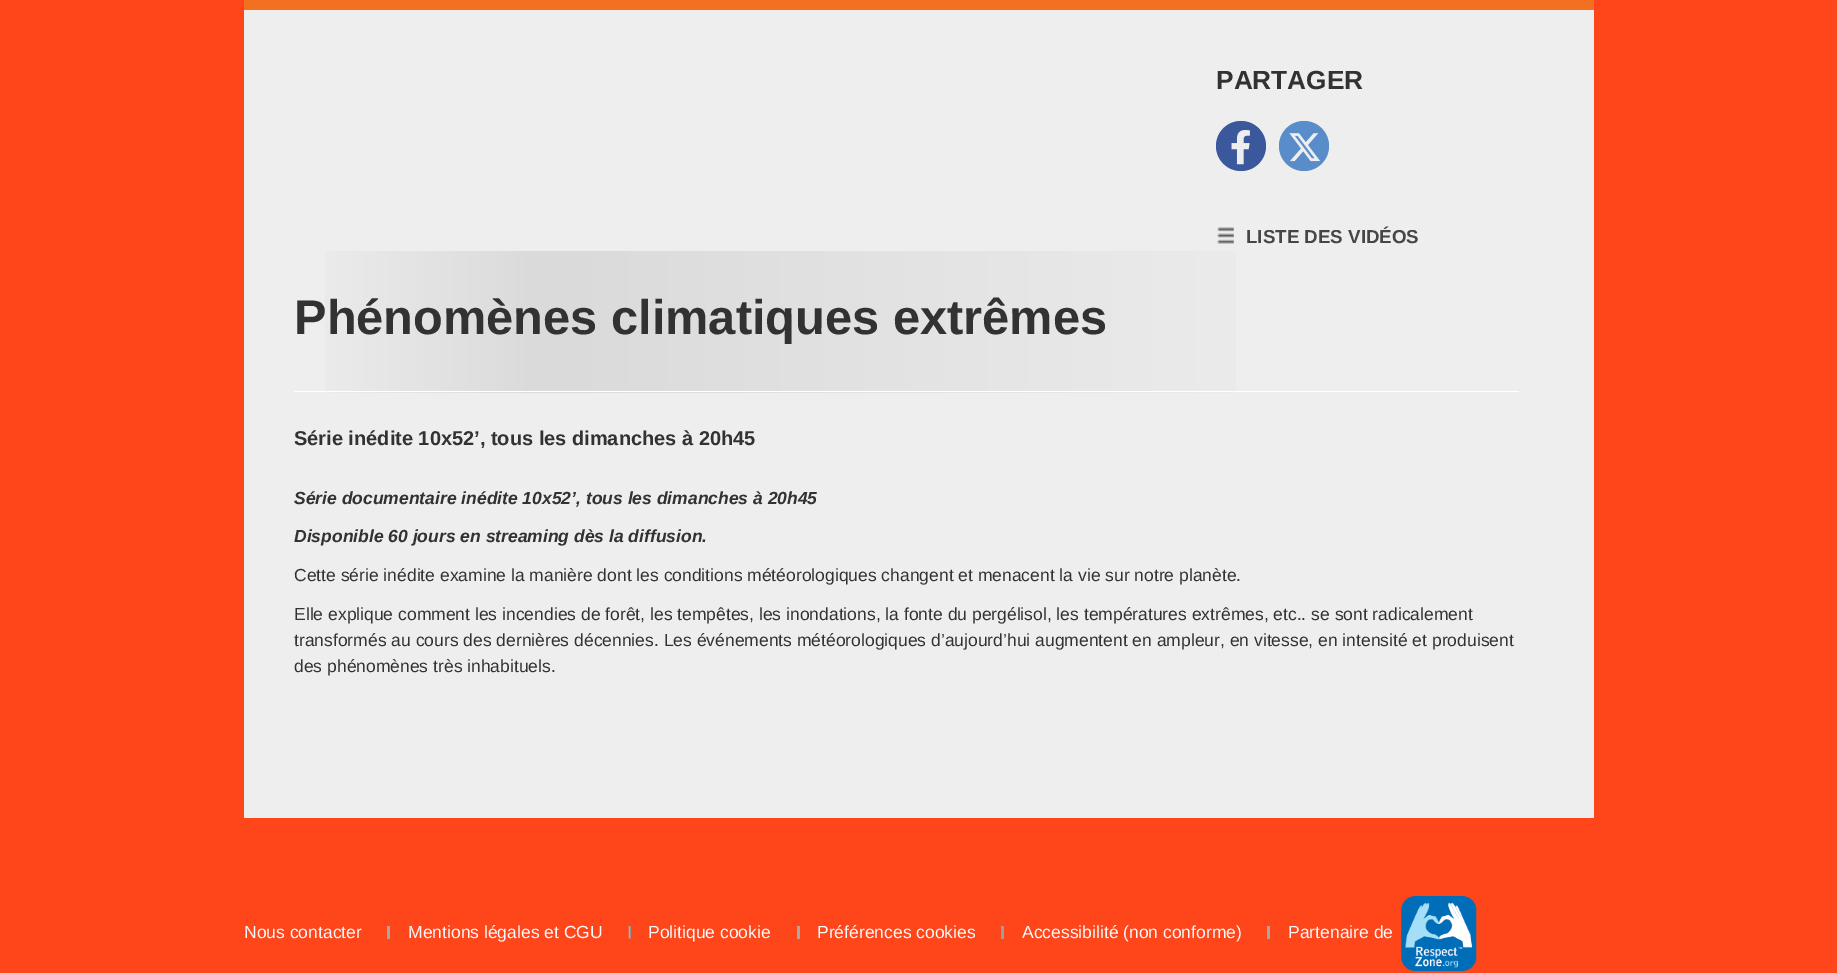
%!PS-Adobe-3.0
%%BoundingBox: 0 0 1837 973
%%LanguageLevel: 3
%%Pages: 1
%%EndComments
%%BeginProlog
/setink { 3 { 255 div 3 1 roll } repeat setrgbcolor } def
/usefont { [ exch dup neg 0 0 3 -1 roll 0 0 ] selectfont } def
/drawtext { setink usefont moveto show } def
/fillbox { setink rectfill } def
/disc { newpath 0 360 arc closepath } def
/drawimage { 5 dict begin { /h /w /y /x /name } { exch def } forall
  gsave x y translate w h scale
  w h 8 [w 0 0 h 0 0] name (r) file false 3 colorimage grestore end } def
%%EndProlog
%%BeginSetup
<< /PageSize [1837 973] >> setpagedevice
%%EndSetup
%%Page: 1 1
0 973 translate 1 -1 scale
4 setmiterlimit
0 0 1837 973 255 69 26 fillbox
244 0 1350 10 243 112 33 fillbox
244 10 1350 808 238 238 238 fillbox
(PARTAGER) 1216 89 /LiberationSans-Bold 26.25 50 50 50 drawtext
58 88 155 setink
1241 146 25 disc fill
(assets/img1.rgb) 1231 130 19 35 drawimage
89 141 202 setink
1304 146 25 disc fill
(assets/img2.rgb) 1289 133 31 29 drawimage
(assets/img3.rgb) 1217 227 17 17 drawimage
(LISTE DES VIDÉOS) 1246 243 /LiberationSans-Bold 18.75 70 70 70 drawtext
gsave 325 251 moveto 1236 251 lineto 1236 393 lineto 325 393 lineto closepath clip newpath
<< /ShadingType 2 /ColorSpace /DeviceRGB /Coords [294 321 1519 321] /Extend [true true] /Function << /FunctionType 3 /Domain [0 1] /Functions [<< /FunctionType 2 /Domain [0 1] /C0 [0.933 0.933 0.933] /C1 [0.855 0.855 0.855] /N 1 >> << /FunctionType 2 /Domain [0 1] /C0 [0.855 0.855 0.855] /C1 [0.933 0.933 0.933] /N 1 >> << /FunctionType 2 /Domain [0 1] /C0 [0.933 0.933 0.933] /C1 [0.933 0.933 0.933] /N 1 >>] /Bounds [0.2 0.85] /Encode [0 1 0 1 0 1] >> >> shfill grestore
294 391 1225 1 255 255 255 fillbox
(Phénomènes climatiques extrêmes) 294 334 /LiberationSans-Bold 48.75 50 50 50 drawtext
(Série inédite 10x52’, tous les dimanches à 20h45) 294 445 /LiberationSans-Bold 20 50 50 50 drawtext
(Série documentaire inédite 10x52’, tous les dimanches à 20h45) 294 504 /LiberationSans-BoldItalic 17.5 50 50 50 drawtext
(Disponible 60 jours en streaming dès la diffusion.) 294 542 /LiberationSans-BoldItalic 17.5 50 50 50 drawtext
(Cette série inédite examine la manière dont les conditions météorologiques changent et menacent la vie sur notre planète.) 294 581 /LiberationSans-Regular 17.5 50 50 50 drawtext
(Elle explique comment les incendies de forêt, les tempêtes, les inondations, la fonte du pergélisol, les températures extrêmes, etc.. se sont radicalement) 294 620 /LiberationSans-Regular 17.5 50 50 50 drawtext
(transformés au cours des dernières décennies. Les événements météorologiques d’aujourd’hui augmentent en ampleur, en vitesse, en intensité et produisent) 294 646 /LiberationSans-Regular 17.5 50 50 50 drawtext
(des phénomènes très inhabituels.) 294 672 /LiberationSans-Regular 17.5 50 50 50 drawtext
(Nous contacter) 244 938 /LiberationSans-Regular 17.5 248 249 250 drawtext
387 926 3 13 168 168 168 fillbox
(Mentions légales et CGU) 408 938 /LiberationSans-Regular 17.5 248 249 250 drawtext
(assets/img4.rgb) 628 926 4 13 drawimage
(Politique cookie) 648 938 /LiberationSans-Regular 17.5 248 249 250 drawtext
797 926 3 13 168 168 168 fillbox
(Préférences cookies) 817 938 /LiberationSans-Regular 17.5 248 249 250 drawtext
1001 926 3 13 158 158 158 fillbox
(Accessibilité \(non conforme\)) 1022 938 /LiberationSans-Regular 17.5 248 249 250 drawtext
1267 926 3 13 168 168 168 fillbox
(Partenaire de) 1288 938 /LiberationSans-Regular 17.5 248 249 250 drawtext
(assets/img5.rgb) 1401 896 76 75 drawimage
showpage
%%EOF
